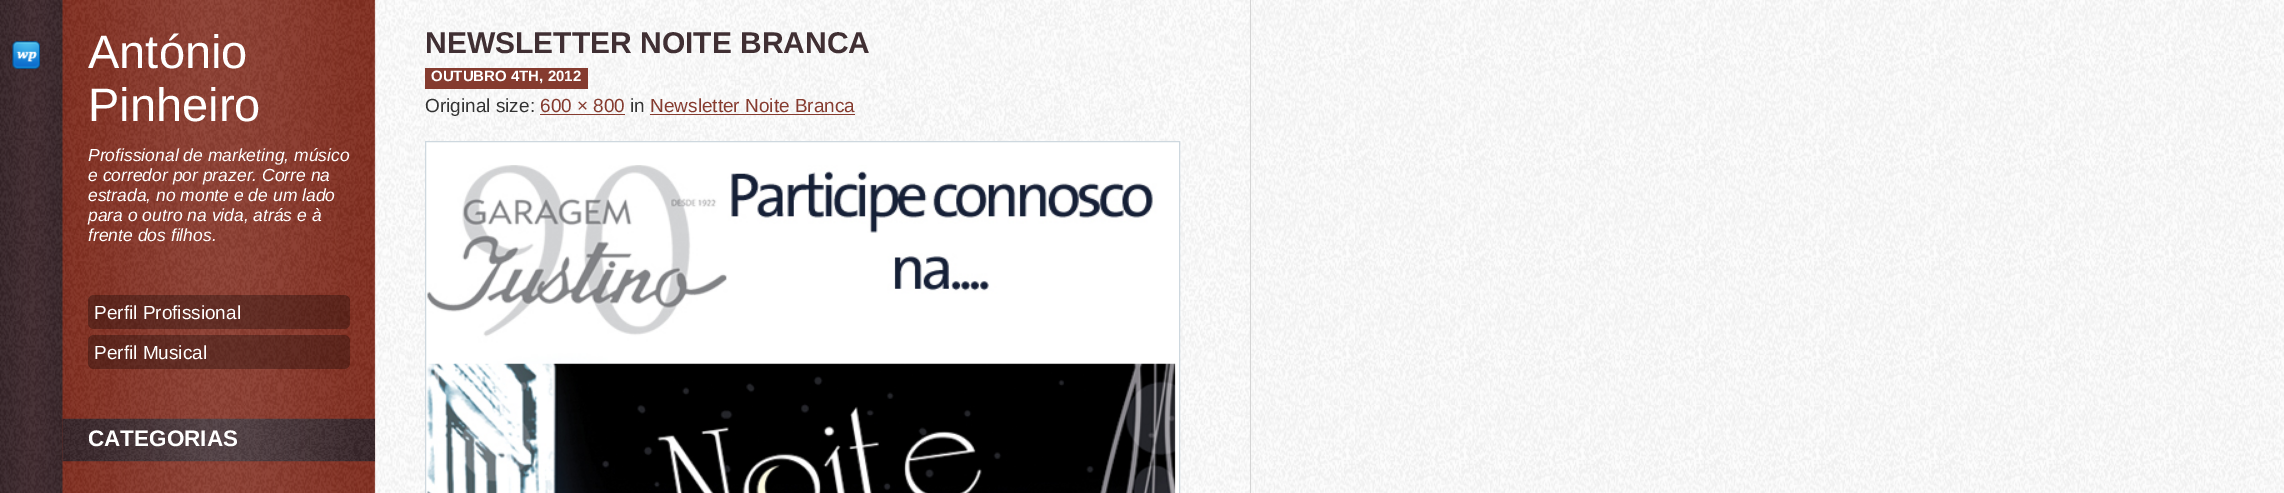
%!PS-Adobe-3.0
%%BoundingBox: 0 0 2284 493
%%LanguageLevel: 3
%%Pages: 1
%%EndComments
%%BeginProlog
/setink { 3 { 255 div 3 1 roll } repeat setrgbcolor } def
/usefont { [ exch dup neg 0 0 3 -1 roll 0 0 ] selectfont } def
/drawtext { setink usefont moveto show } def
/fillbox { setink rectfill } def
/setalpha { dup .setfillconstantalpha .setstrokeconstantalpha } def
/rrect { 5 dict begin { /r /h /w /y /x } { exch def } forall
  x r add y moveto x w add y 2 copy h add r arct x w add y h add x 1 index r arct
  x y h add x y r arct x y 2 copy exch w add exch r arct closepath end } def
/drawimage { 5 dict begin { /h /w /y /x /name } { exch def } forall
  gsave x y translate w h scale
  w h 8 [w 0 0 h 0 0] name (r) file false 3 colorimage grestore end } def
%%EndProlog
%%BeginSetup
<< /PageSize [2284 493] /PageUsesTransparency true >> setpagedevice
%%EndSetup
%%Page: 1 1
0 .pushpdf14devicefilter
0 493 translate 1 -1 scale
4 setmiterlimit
0 0 2284 493 255 255 255 fillbox
(assets/img1.rgb) 1251 0 1033 493 drawimage
(assets/img2.rgb) 0 0 1250 493 drawimage
1250 0 1 493 212 212 212 fillbox
(assets/img3.rgb) 12 41 28 28 drawimage
(António) 88 68 /LiberationSans-Regular 47 255 255 255 drawtext
(Pinheiro) 88 121 /LiberationSans-Regular 47 255 255 255 drawtext
(Profissional de marketing, músico) 88 161 /LiberationSans-Italic 17.5 255 255 255 drawtext
(e corredor por prazer. Corre na) 88 181 /LiberationSans-Italic 17.5 255 255 255 drawtext
(estrada, no monte e de um lado) 88 201 /LiberationSans-Italic 17.5 255 255 255 drawtext
(para o outro na vida, atrás e à) 88 221 /LiberationSans-Italic 17.5 255 255 255 drawtext
(frente dos filhos.) 88 241 /LiberationSans-Italic 17.5 255 255 255 drawtext
0.3 setalpha
0 0 0 setink
88 295 262 34 6 rrect fill
1 setalpha
(Perfil Profissional) 94 319 /LiberationSans-Regular 19 255 255 255 drawtext
0.3 setalpha
0 0 0 setink
88 335 262 34 6 rrect fill
1 setalpha
(Perfil Musical) 94 359 /LiberationSans-Regular 19 255 255 255 drawtext
(assets/img4.rgb) 62 418 313 44 drawimage
(CATEGORIAS) 88 446 /LiberationSans-Bold 22.5 255 255 255 drawtext
(NEWSLETTER NOITE BRANCA) 425 53 /LiberationSans-Bold 30 64 47 51 drawtext
425 68 163 21 133 59 47 fillbox
(OUTUBRO 4TH, 2012) 431 81 /LiberationSans-Bold 15 255 255 255 drawtext
(Original size:) 425 112 /LiberationSans-Regular 19 51 51 51 drawtext
(600 × 800) 540 112 /LiberationSans-Regular 19 133 59 47 drawtext
540 114 85 1 133 59 47 fillbox
(in) 630 112 /LiberationSans-Regular 19 51 51 51 drawtext
(Newsletter Noite Branca) 650 112 /LiberationSans-Regular 19 133 59 47 drawtext
650 114 205 1 133 59 47 fillbox
255 255 255 setink
425.5 141.5 moveto 1179.5 141.5 lineto 1179.5 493.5 lineto 425.5 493.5 lineto closepath gsave fill grestore
206 216 223 setink
stroke
(assets/img5.rgb) 427 165 749 328 drawimage
.poppdf14devicefilter showpage
%%EOF
